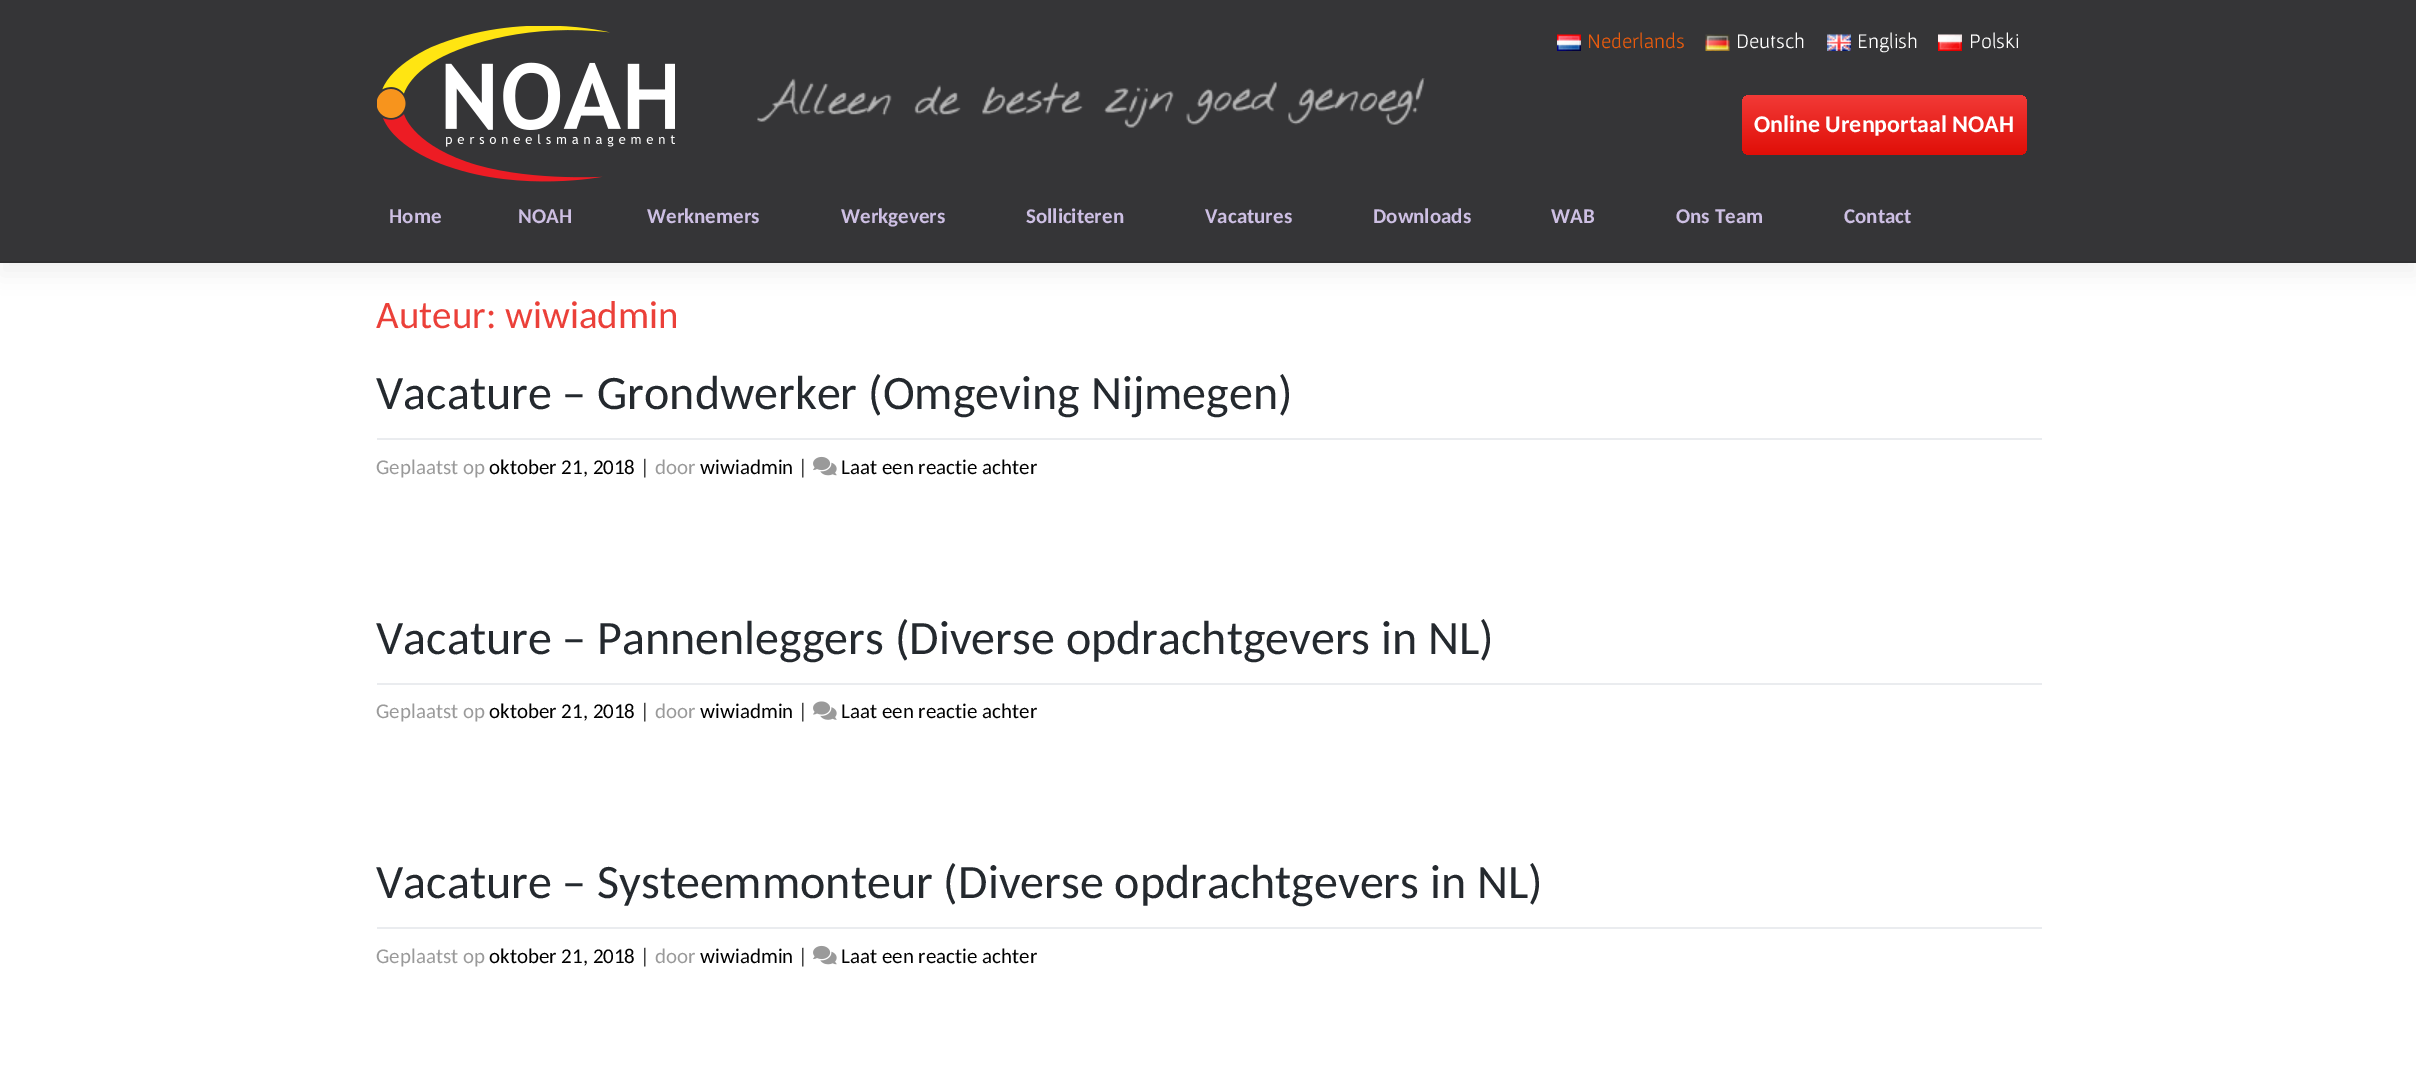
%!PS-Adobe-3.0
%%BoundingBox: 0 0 2416 1065
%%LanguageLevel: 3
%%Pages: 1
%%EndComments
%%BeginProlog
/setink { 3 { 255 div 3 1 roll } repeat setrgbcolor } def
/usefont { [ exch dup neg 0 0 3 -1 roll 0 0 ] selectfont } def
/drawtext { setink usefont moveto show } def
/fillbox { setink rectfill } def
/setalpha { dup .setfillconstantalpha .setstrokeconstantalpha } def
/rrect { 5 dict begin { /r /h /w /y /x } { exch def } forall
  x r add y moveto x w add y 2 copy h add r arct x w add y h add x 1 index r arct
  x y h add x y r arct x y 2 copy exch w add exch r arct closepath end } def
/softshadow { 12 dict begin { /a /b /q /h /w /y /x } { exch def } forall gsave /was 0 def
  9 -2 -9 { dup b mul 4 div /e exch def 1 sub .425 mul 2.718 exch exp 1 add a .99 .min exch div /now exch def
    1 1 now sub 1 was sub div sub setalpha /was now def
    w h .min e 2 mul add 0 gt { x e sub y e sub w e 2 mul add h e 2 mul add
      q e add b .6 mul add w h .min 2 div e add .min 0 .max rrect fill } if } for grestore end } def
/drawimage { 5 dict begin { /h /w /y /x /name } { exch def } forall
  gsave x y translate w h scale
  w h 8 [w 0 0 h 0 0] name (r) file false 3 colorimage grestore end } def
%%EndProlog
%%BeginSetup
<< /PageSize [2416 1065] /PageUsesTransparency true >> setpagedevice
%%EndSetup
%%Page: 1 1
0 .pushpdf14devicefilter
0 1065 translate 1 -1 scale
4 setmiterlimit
0 0 2416 1065 255 255 255 fillbox
0 0 0 setink
0 12 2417 263 0 12 0.05 softshadow
0 0 2416 261 53 53 55 fillbox
0 261 2416 2 48 48 50 fillbox
(assets/img1.rgb) 377 26 298 156 drawimage
(assets/img2.rgb) 757 78 668 50 drawimage
(assets/img3.rgb) 1557 34 24 17 drawimage
(Nederlands) 1587 48 /Gafata-Regular 21 234 91 12 drawtext
(assets/img4.rgb) 1705 34 25 17 drawimage
(Deutsch) 1736 48 /Gafata-Regular 21 255 255 255 drawtext
(assets/img5.rgb) 1827 34 24 17 drawimage
(English) 1857 48 /Gafata-Regular 21 255 255 255 drawtext
(assets/img6.rgb) 1938 34 24 17 drawimage
(Polski) 1969 48 /Gafata-Regular 21 255 255 255 drawtext
gsave 1742 95 285 60 8 rrect clip newpath
<< /ShadingType 2 /ColorSpace /DeviceRGB /Coords [1884 94 1884 155] /Extend [true true] /Function << /FunctionType 2 /Domain [0 1] /C0 [0.949 0.231 0.22] /C1 [0.878 0.055 0.027] /N 1 >> >> shfill grestore
(Online Urenportaal NOAH) 1754 132 /Carlito-Bold 24 255 255 255 drawtext
(Home) 389 223 /Carlito-Bold 21 205 191 227 drawtext
(NOAH) 518 223 /Carlito-Bold 21 205 191 227 drawtext
(Werknemers) 647 223 /Carlito-Bold 21 205 191 227 drawtext
(Werkgevers) 841 223 /Carlito-Bold 21 205 191 227 drawtext
(Solliciteren) 1026 223 /Carlito-Bold 21 205 191 227 drawtext
(Vacatures) 1205 223 /Carlito-Bold 21 205 191 227 drawtext
(Downloads) 1373 223 /Carlito-Bold 21 205 191 227 drawtext
(WAB) 1551 223 /Carlito-Bold 21 205 191 227 drawtext
(Ons Team) 1676 223 /Carlito-Bold 21 205 191 227 drawtext
(Contact) 1844 223 /Carlito-Bold 21 205 191 227 drawtext
(Auteur: wiwiadmin) 376 328 /Carlito-Regular 39 235 64 57 drawtext
377 438 1665 2 234 236 239 fillbox
(Vacature – Grondwerker \(Omgeving Nijmegen\)) 376 409 /Carlito-Regular 48 36 41 46 drawtext
(Geplaatst op) 376 474 /Carlito-Regular 21 154 154 154 drawtext
(oktober 21, 2018) 489 474 /Carlito-Regular 21 0 0 0 drawtext
(|) 640 474 /Carlito-Regular 21 68 68 68 drawtext
(door) 655 474 /Carlito-Regular 21 154 154 154 drawtext
(wiwiadmin) 700 474 /Carlito-Regular 21 0 0 0 drawtext
(|) 798 474 /Carlito-Regular 21 68 68 68 drawtext
(assets/img7.rgb) 813 456 24 20 drawimage
(Laat een reactie achter) 841 474 /Carlito-Regular 21 0 0 0 drawtext
377 683 1665 2 234 236 239 fillbox
(Vacature – Pannenleggers \(Diverse opdrachtgevers in NL\)) 376 654 /Carlito-Regular 48 36 41 46 drawtext
(Geplaatst op) 376 718 /Carlito-Regular 21 154 154 154 drawtext
(oktober 21, 2018) 489 718 /Carlito-Regular 21 0 0 0 drawtext
(|) 640 718 /Carlito-Regular 21 68 68 68 drawtext
(door) 655 718 /Carlito-Regular 21 154 154 154 drawtext
(wiwiadmin) 700 718 /Carlito-Regular 21 0 0 0 drawtext
(|) 798 718 /Carlito-Regular 21 68 68 68 drawtext
(assets/img8.rgb) 813 701 24 19 drawimage
(Laat een reactie achter) 841 718 /Carlito-Regular 21 0 0 0 drawtext
377 927 1665 2 234 236 239 fillbox
(Vacature – Systeemmonteur \(Diverse opdrachtgevers in NL\)) 376 898 /Carlito-Regular 48 36 41 46 drawtext
(Geplaatst op) 376 963 /Carlito-Regular 21 154 154 154 drawtext
(oktober 21, 2018) 489 963 /Carlito-Regular 21 0 0 0 drawtext
(|) 640 963 /Carlito-Regular 21 68 68 68 drawtext
(door) 655 963 /Carlito-Regular 21 154 154 154 drawtext
(wiwiadmin) 700 963 /Carlito-Regular 21 0 0 0 drawtext
(|) 798 963 /Carlito-Regular 21 68 68 68 drawtext
(assets/img7.rgb) 813 945 24 20 drawimage
(Laat een reactie achter) 841 963 /Carlito-Regular 21 0 0 0 drawtext
.poppdf14devicefilter showpage
%%EOF
